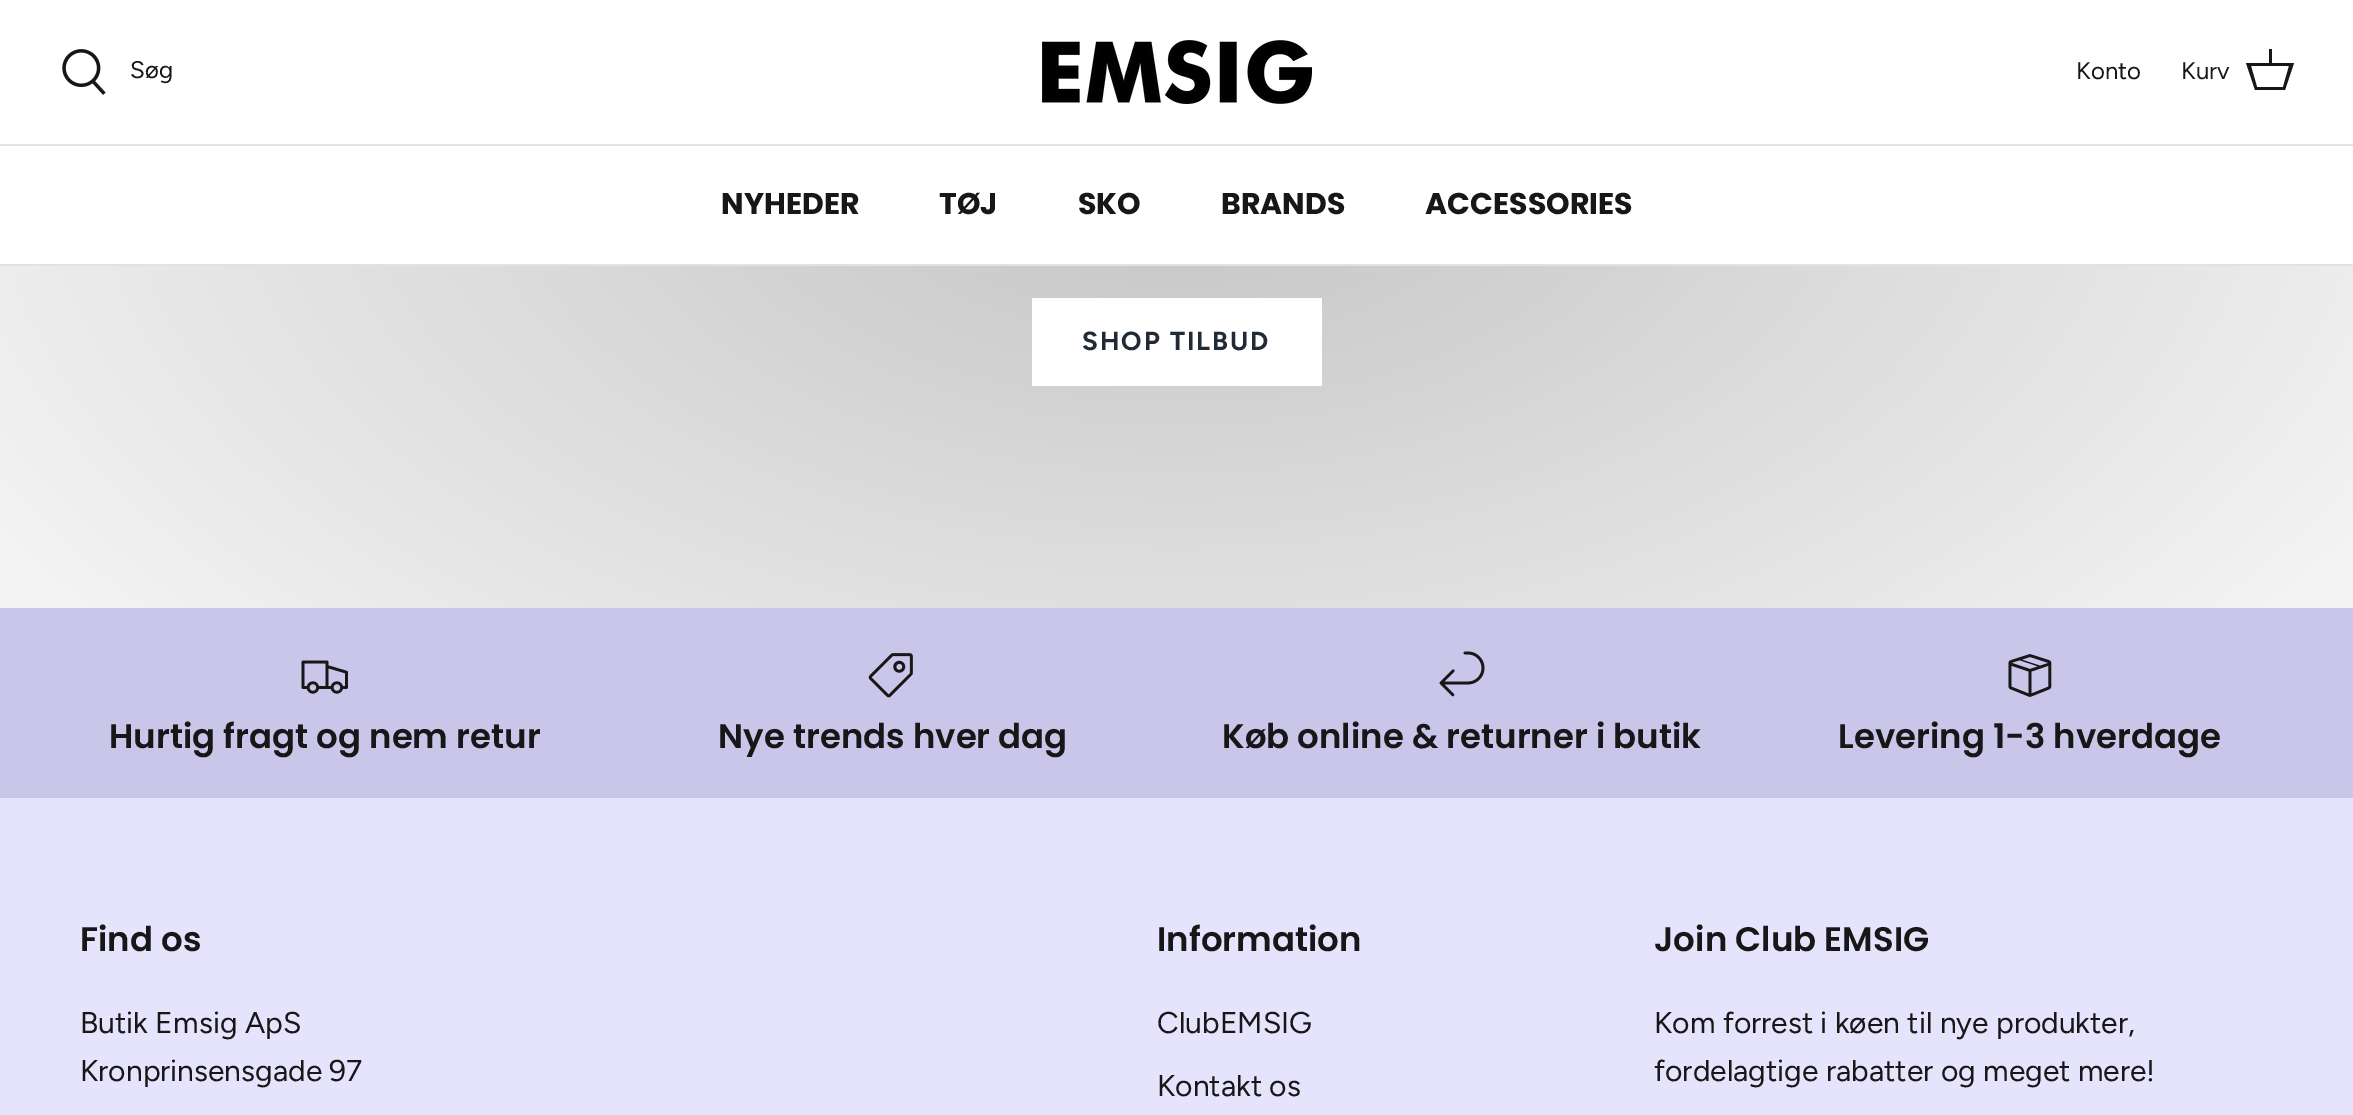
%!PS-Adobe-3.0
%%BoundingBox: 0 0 2353 1115
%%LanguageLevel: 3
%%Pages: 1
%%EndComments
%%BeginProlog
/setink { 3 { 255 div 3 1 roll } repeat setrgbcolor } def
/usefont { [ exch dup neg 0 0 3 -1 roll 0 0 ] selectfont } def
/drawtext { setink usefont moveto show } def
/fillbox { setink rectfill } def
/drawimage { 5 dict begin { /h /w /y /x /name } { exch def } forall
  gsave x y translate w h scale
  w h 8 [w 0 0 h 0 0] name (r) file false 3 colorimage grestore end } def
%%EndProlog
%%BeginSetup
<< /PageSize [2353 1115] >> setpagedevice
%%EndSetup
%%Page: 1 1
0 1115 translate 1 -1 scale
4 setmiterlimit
0 0 2353 1115 230 228 253 fillbox
0 0 2353 144 255 255 255 fillbox
0 144 2353 2 223 227 232 fillbox
(assets/img1.rgb) 62 49 44 46 drawimage
(Søg) 130 78 /Figtree-Regular 24 23 23 23 drawtext
(assets/img2.rgb) 1042 40 270 64 drawimage
(Konto) 2076 79 /Figtree-Regular 24 23 23 23 drawtext
(Kurv) 2181 79 /Figtree-Regular 24 23 23 23 drawtext
2269 63 moveto 2269 49 lineto 2272 49 lineto 2272 63 lineto 2294 63 lineto 2285 90 lineto 2255 90 lineto 2246 63 lineto closepath 2251 66 moveto 2257 87 lineto 2283 87 lineto 2289 66 lineto closepath fill
0 264 2353 2 223 227 232 fillbox
0 146 2353 118 255 255 255 fillbox
(NYHEDER) 721 214 /Poppins-Bold 30 23 23 23 drawtext
(TØJ) 939 214 /Poppins-Bold 30 23 23 23 drawtext
(SKO) 1078 214 /Poppins-Bold 30 23 23 23 drawtext
(BRANDS) 1221 214 /Poppins-Bold 30 23 23 23 drawtext
(ACCESSORIES) 1425 214 /Poppins-Bold 30 23 23 23 drawtext
gsave 0 266 moveto 2353 266 lineto 2353 608 lineto 0 608 lineto closepath clip newpath 1177 149 translate 1947 1099 scale
<< /ShadingType 3 /ColorSpace /DeviceRGB /Coords [0 0 0 0 0 1] /Extend [true true] /Function << /FunctionType 3 /Domain [0 1] /Functions [<< /FunctionType 2 /Domain [0 1] /C0 [0.765 0.765 0.765] /C1 [0.953 0.953 0.953] /N 1 >> << /FunctionType 2 /Domain [0 1] /C0 [0.953 0.953 0.953] /C1 [0.953 0.953 0.953] /N 1 >>] /Bounds [0.7] /Encode [0 1 0 1] >> >> shfill grestore
1032 298 290 88 255 255 255 fillbox
/Figtree-Bold 26 usefont
33 43 54 setink
1082 350 moveto 2 0 (SHOP TILBUD) ashow
0 608 2353 190 201 198 234 fillbox
(assets/img3.rgb) 301 660 47 34 drawimage
(Hurtig fragt og nem retur) 109 748 /Poppins-SemiBold 34 23 23 23 drawtext
(assets/img4.rgb) 868 653 45 45 drawimage
(Nye trends hver dag) 718 748 /Poppins-SemiBold 34 23 23 23 drawtext
(assets/img5.rgb) 1439 651 46 46 drawimage
(Køb online & returner i butik) 1222 748 /Poppins-SemiBold 34 23 23 23 drawtext
(assets/img6.rgb) 2008 654 44 43 drawimage
(Levering 1-3 hverdage) 1838 748 /Poppins-SemiBold 34 23 23 23 drawtext
(Find os) 80 951 /Poppins-SemiBold 34 23 23 23 drawtext
(Butik Emsig ApS) 80 1033 /Figtree-Regular 30 23 23 23 drawtext
(Kronprinsensgade 97) 80 1081 /Figtree-Regular 30 23 23 23 drawtext
(Information) 1157 951 /Poppins-SemiBold 34 23 23 23 drawtext
(ClubEMSIG) 1157 1033 /Figtree-Regular 30 23 23 23 drawtext
(Kontakt os) 1157 1096 /Figtree-Regular 30 23 23 23 drawtext
(Join Club EMSIG) 1654 951 /Poppins-SemiBold 34 23 23 23 drawtext
(Kom forrest i køen til nye produkter,) 1654 1033 /Figtree-Regular 30 23 23 23 drawtext
(fordelagtige rabatter og meget mere!) 1654 1081 /Figtree-Regular 30 23 23 23 drawtext
showpage
%%EOF
